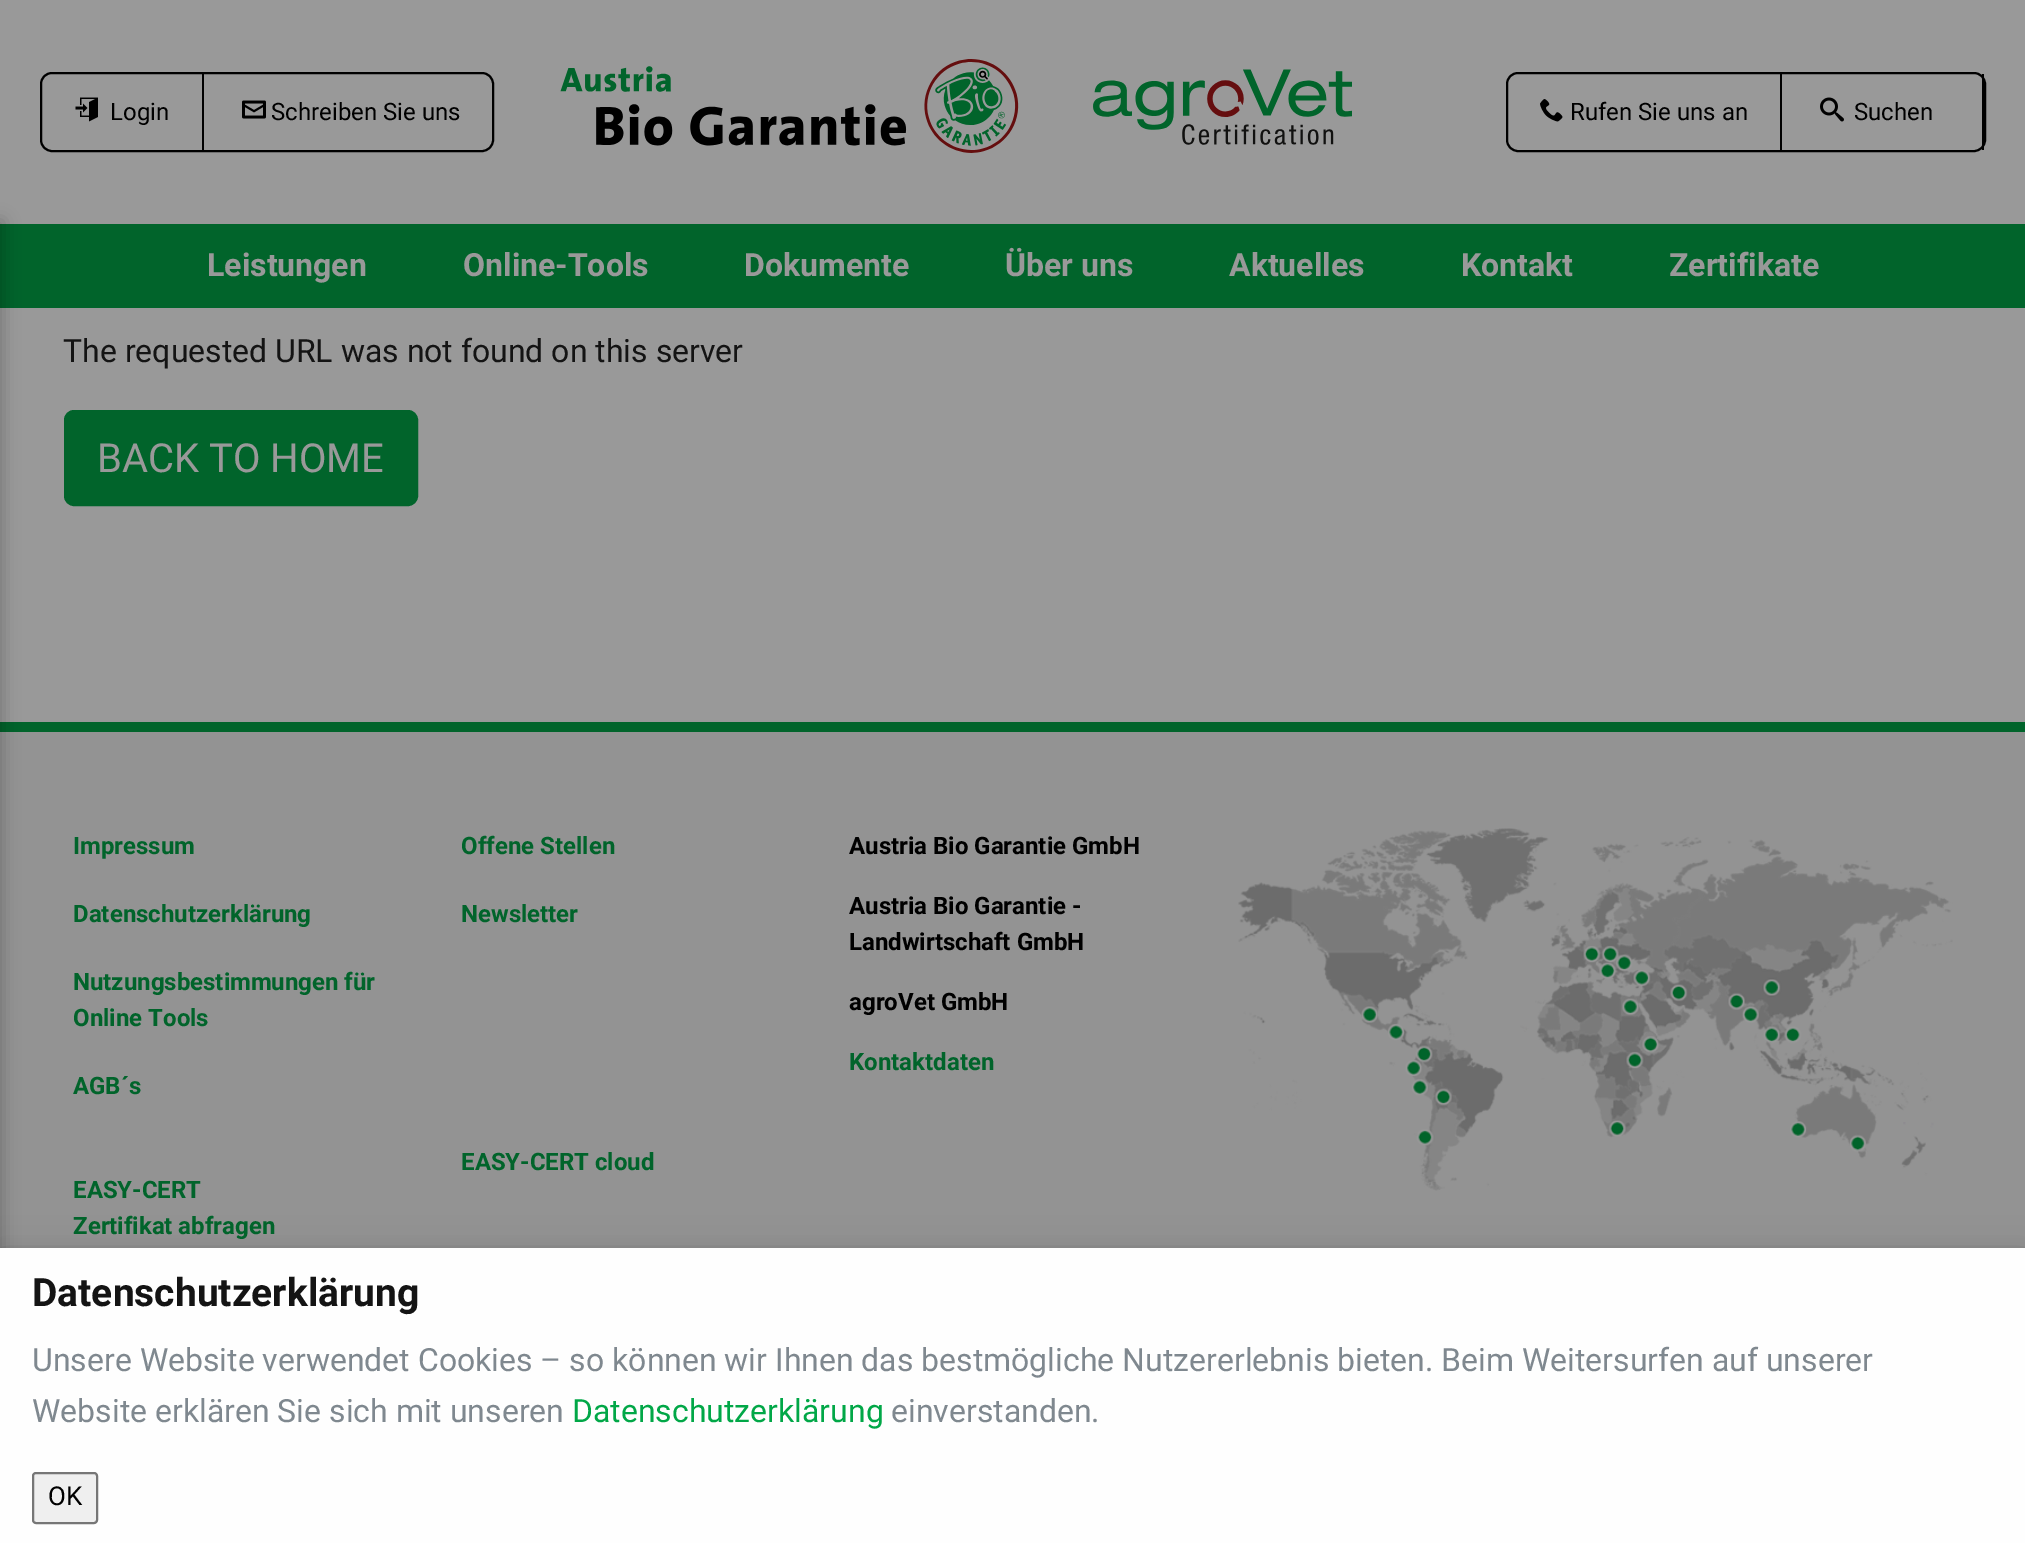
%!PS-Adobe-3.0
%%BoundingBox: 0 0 2025 1543
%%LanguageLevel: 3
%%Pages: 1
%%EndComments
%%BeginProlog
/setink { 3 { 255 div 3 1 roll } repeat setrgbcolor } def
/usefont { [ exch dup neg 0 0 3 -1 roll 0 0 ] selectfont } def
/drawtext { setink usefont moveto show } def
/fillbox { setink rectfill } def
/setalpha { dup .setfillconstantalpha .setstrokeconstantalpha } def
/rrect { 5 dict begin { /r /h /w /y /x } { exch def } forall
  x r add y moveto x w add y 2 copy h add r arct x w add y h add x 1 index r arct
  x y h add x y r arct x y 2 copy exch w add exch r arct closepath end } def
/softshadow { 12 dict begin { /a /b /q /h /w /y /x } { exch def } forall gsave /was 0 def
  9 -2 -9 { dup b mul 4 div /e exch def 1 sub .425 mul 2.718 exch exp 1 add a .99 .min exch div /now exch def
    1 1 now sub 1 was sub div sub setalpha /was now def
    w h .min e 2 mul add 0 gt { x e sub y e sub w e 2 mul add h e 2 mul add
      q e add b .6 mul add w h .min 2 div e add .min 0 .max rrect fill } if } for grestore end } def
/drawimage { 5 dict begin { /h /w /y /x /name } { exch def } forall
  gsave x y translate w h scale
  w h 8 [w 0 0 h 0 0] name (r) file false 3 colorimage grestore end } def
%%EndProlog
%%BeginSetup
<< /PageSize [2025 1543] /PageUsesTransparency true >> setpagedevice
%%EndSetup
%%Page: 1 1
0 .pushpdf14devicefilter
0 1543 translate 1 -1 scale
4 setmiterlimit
0 0 2025 1543 153 153 153 fillbox
0 224 2025 84 1 100 43 fillbox
0 732 2025 516 147 147 147 fillbox
0 722 2025 10 1 100 43 fillbox
0 0 0 setink
-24 220 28 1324 0 8 0.2 softshadow
2 setlinewidth
41 73 452 78 11 rrect stroke
202 74 2 76 0 0 0 fillbox
(assets/img1.rgb) 75 97 23 25 drawimage
(Login) 110 120 /Roboto-Regular 24 0 0 0 drawtext
(assets/img2.rgb) 242 100 24 19 drawimage
(Schreiben Sie uns) 271 120 /Roboto-Regular 24 0 0 0 drawtext
(assets/img3.rgb) 560 59 792 94 drawimage
1507 73 478 78 11 rrect stroke
1780 74 2 76 0 0 0 fillbox
(assets/img4.rgb) 1540 99 23 23 drawimage
(Rufen Sie uns an) 1570 120 /Roboto-Regular 24 0 0 0 drawtext
1982 74 2 76 0 0 0 fillbox
(assets/img5.rgb) 1820 97 24 25 drawimage
(Suchen) 1854 120 /Roboto-Regular 24 0 0 0 drawtext
(Leistungen) 207 276 /Roboto-Bold 32 153 153 153 drawtext
(Online-Tools) 463 276 /Roboto-Bold 32 153 153 153 drawtext
(Dokumente) 744 276 /Roboto-Bold 32 153 153 153 drawtext
(Über uns) 1005 276 /Roboto-Bold 32 153 153 153 drawtext
(Aktuelles) 1229 276 /Roboto-Bold 32 153 153 153 drawtext
(Kontakt) 1461 276 /Roboto-Bold 32 153 153 153 drawtext
(Zertifikate) 1669 276 /Roboto-Bold 32 153 153 153 drawtext
(The requested URL was not found on this server) 63 362 /Roboto-Regular 32 20 20 20 drawtext
1 100 43 setink
65 411 352 94 9 rrect gsave fill grestore
stroke
(BACK TO HOME) 97 472 /Roboto-Regular 40 153 153 153 drawtext
0 0 0 setink
0 1260 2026 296 0 20 0.19 softshadow
0 1256 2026 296 0 8 0.2 softshadow
0 1248 2025 295 254 254 254 fillbox
(Datenschutzerklärung) 32 1306 /Roboto-Bold 39 20 20 20 drawtext
(Unsere Website verwendet Cookies – so können wir Ihnen das bestmögliche Nutzererlebnis bieten. Beim Weitersurfen auf unserer) 32 1371 /Roboto-Regular 32 127 136 143 drawtext
(Website erklären Sie sich mit unseren) 32 1422 /Roboto-Regular 32 127 136 143 drawtext
(Datenschutzerklärung) 572 1422 /Roboto-Regular 32 1 167 71 drawtext
(einverstanden.) 891 1422 /Roboto-Regular 32 127 136 143 drawtext
239 239 239 setink
33 1473 64 50 3 rrect gsave fill grestore
118 118 118 setink
stroke
(OK) 48 1505 /Roboto-Regular 26 0 0 0 drawtext
(Impressum) 73 854 /Roboto-Bold 24 1 100 43 drawtext
(Datenschutzerklärung) 73 922 /Roboto-Bold 24 1 100 43 drawtext
(Nutzungsbestimmungen für) 73 990 /Roboto-Bold 24 1 100 43 drawtext
(Online Tools) 73 1026 /Roboto-Bold 24 1 100 43 drawtext
(AGB´s) 73 1094 /Roboto-Bold 24 1 100 43 drawtext
(EASY-CERT) 73 1198 /Roboto-Bold 24 1 100 43 drawtext
(Zertifikat abfragen) 73 1234 /Roboto-Bold 24 1 100 43 drawtext
(Offene Stellen) 461 854 /Roboto-Bold 24 1 100 43 drawtext
(Newsletter) 461 922 /Roboto-Bold 24 1 100 43 drawtext
(EASY-CERT cloud) 461 1170 /Roboto-Bold 24 1 100 43 drawtext
(Austria Bio Garantie GmbH) 849 854 /Roboto-Bold 24 0 0 0 drawtext
(Austria Bio Garantie -) 849 914 /Roboto-Bold 24 0 0 0 drawtext
(Landwirtschaft GmbH) 849 950 /Roboto-Bold 24 0 0 0 drawtext
(agroVet GmbH) 849 1010 /Roboto-Bold 24 0 0 0 drawtext
(Kontaktdaten) 849 1070 /Roboto-Bold 24 1 100 43 drawtext
(assets/img6.rgb) 1238 828 715 363 drawimage
.poppdf14devicefilter showpage
%%EOF
